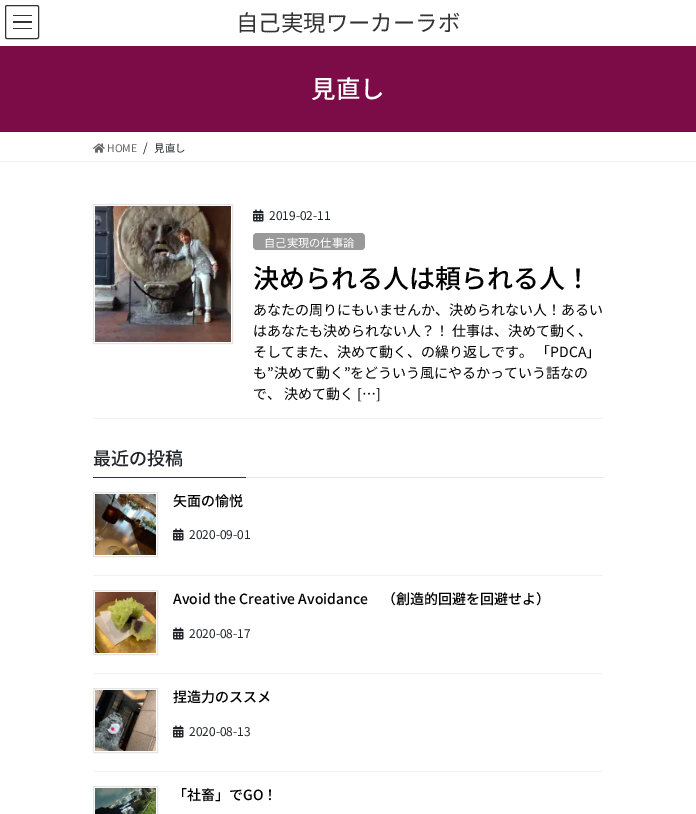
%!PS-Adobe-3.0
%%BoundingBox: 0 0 696 814
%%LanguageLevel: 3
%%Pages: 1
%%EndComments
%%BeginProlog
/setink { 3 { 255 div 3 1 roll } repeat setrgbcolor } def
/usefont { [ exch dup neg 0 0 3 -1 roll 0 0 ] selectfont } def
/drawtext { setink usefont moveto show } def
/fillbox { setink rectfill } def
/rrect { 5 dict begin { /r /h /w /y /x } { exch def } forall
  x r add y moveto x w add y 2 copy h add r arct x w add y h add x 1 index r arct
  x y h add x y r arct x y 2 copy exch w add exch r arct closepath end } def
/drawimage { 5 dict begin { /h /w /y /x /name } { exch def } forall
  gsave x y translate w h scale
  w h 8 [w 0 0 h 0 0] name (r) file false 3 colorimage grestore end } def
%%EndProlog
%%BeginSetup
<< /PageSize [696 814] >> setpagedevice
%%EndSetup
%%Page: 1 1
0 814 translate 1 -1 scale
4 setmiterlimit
0 0 696 814 255 255 255 fillbox
13 15 19 1 51 51 51 fillbox
13 21 19 2 51 51 51 fillbox
13 28 19 1 51 51 51 fillbox
5.5 5.5 33 33 1.5 rrect stroke
(自己実現ワーカーラボ) 236 31 /NotoSansJP-Regular 22.4 51 51 51 drawtext
0 46 696 86 124 12 72 fillbox
(見直し) 311 98 /NotoSansJP-Medium 24.5 255 255 255 drawtext
0 161 696 1 242 242 242 fillbox
(assets/img1.rgb) 93 143 12 10 drawimage
(HOME) 107 152 /NotoSansJP-Regular 10.5 102 102 102 drawtext
(/) 143 152 /NotoSansJP-Regular 12 33 37 41 drawtext
(見直し) 154 152 /NotoSansJP-Regular 10.5 33 37 41 drawtext
93 418 510 1 242 242 242 fillbox
229 229 229 setink
93.5 204.5 139 139 rectstroke
(assets/img2.rgb) 95 206 136 136 drawimage
(assets/img3.rgb) 253 209 11 13 drawimage
(2019-02-11) 269 220 /NotoSansJP-Regular 12 33 37 41 drawtext
153 153 153 setink
253 233 112 17 4 rrect fill
(自己実現の仕事論) 264 247 /NotoSansJP-Regular 11.25 255 255 255 drawtext
(決められる人は頼られる人！) 253 288 /NotoSansJP-Medium 26 0 0 0 drawtext
(あなたの周りにもいませんか、決められない人！あるい) 253 315 /NotoSansJP-Regular 14 0 0 0 drawtext
(はあなたも決められない人？！ 仕事は、決めて動く、) 253 336 /NotoSansJP-Regular 14 0 0 0 drawtext
(そしてまた、決めて動く、の繰り返しです。 「PDCA」) 253 357 /NotoSansJP-Regular 14 0 0 0 drawtext
(も”決めて動く”をどういう風にやるかっていう話なの) 253 378 /NotoSansJP-Regular 14 0 0 0 drawtext
(で、 決めて動く […]) 253 399 /NotoSansJP-Regular 14 0 0 0 drawtext
246 477 357 1 230 230 230 fillbox
(最近の投稿) 93 465 /NotoSansJP-Medium 18 33 37 41 drawtext
93 477 153 1 124 12 72 fillbox
93 575 510 1 242 242 242 fillbox
229 229 229 setink
93.5 492.5 64 64 rectstroke
(assets/img4.rgb) 95 494 61 61 drawimage
(矢面の愉悦) 173 506 /NotoSansJP-Medium 14 0 0 0 drawtext
(assets/img3.rgb) 173 528 11 13 drawimage
(2020-09-01) 189 539 /NotoSansJP-Regular 12 33 37 41 drawtext
93 673 510 1 242 242 242 fillbox
229 229 229 setink
93.5 590.5 64 64 rectstroke
(assets/img5.rgb) 95 592 61 61 drawimage
(Avoid the Creative Avoidance　（創造的回避を回避せよ）) 173 604 /NotoSansJP-Medium 14 0 0 0 drawtext
(assets/img3.rgb) 173 627 11 13 drawimage
(2020-08-17) 189 638 /NotoSansJP-Regular 12 33 37 41 drawtext
93 771 510 1 242 242 242 fillbox
229 229 229 setink
93.5 688.5 64 64 rectstroke
(assets/img6.rgb) 95 690 61 61 drawimage
(捏造力のススメ) 173 702 /NotoSansJP-Medium 14 0 0 0 drawtext
(assets/img3.rgb) 173 725 11 13 drawimage
(2020-08-13) 189 736 /NotoSansJP-Regular 12 33 37 41 drawtext
229 229 229 setink
93.5 786.5 64 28 rectstroke
(assets/img7.rgb) 95 788 61 26 drawimage
(「社畜」でGO！) 173 800 /NotoSansJP-Medium 14 0 0 0 drawtext
showpage
%%EOF
